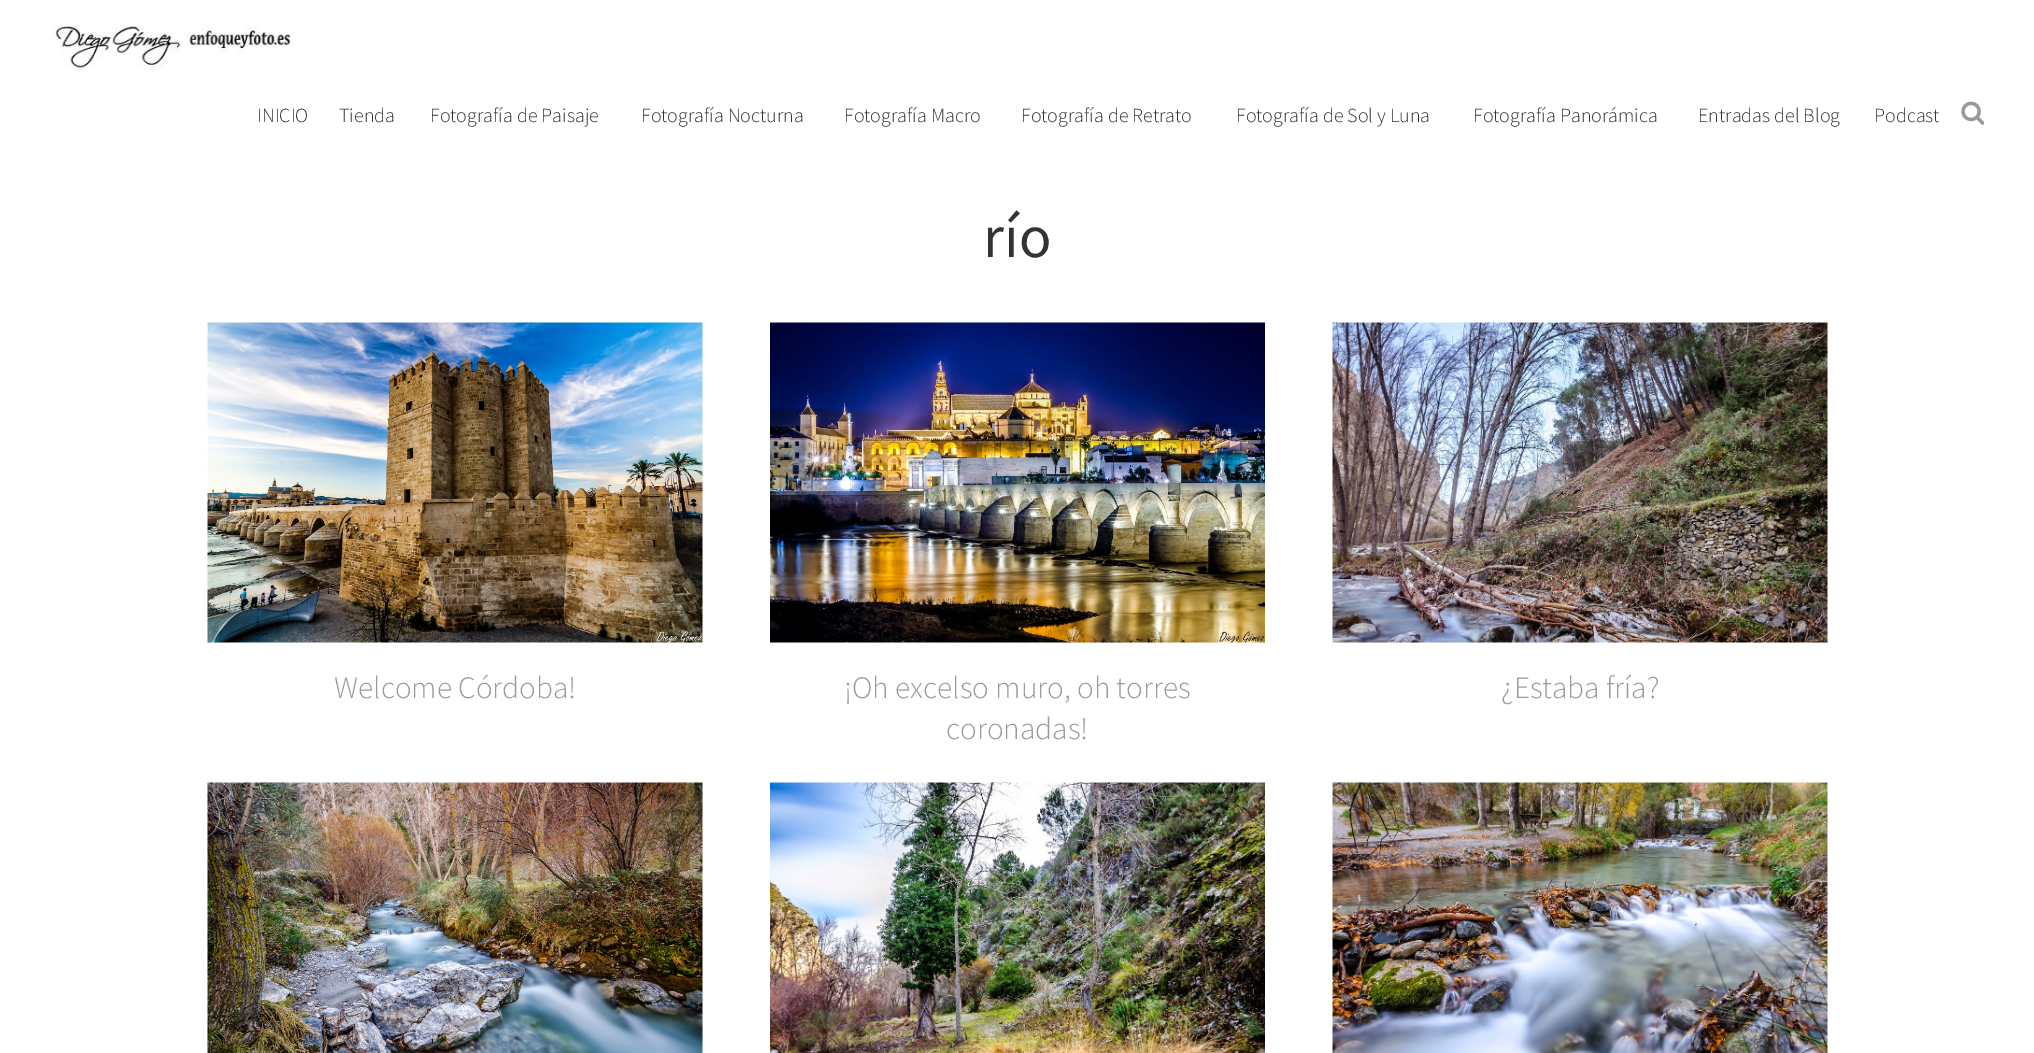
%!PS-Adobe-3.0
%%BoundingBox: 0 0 2034 1053
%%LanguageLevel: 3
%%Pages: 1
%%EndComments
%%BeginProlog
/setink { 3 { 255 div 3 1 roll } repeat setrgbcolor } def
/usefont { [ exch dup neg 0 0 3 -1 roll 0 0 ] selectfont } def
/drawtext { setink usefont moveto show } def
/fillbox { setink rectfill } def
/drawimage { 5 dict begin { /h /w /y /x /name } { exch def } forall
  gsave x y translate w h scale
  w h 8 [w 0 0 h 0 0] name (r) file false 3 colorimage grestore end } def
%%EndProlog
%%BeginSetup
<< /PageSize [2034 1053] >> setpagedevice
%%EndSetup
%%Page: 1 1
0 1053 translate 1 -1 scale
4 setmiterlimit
0 0 2034 1053 255 255 255 fillbox
(assets/img1.rgb) 52 25 242 43 drawimage
(INICIO) 257 122 /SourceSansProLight-Light 20 51 51 51 drawtext
(Tienda) 339 122 /SourceSansProLight-Light 20 51 51 51 drawtext
(Fotografía de Paisaje) 430 122 /SourceSansProLight-Light 20 51 51 51 drawtext
(Fotografía Nocturna) 641 122 /SourceSansProLight-Light 20 51 51 51 drawtext
(Fotografía Macro) 844 122 /SourceSansProLight-Light 20 51 51 51 drawtext
(Fotografía de Retrato) 1021 122 /SourceSansProLight-Light 20 51 51 51 drawtext
(Fotografía de Sol y Luna) 1236 122 /SourceSansProLight-Light 20 51 51 51 drawtext
(Fotografía Panorámica) 1473 122 /SourceSansProLight-Light 20 51 51 51 drawtext
(Entradas del Blog) 1698 122 /SourceSansProLight-Light 20 51 51 51 drawtext
(Podcast) 1874 122 /SourceSansProLight-Light 20 51 51 51 drawtext
(assets/img2.rgb) 1961 101 23 24 drawimage
(río) 983 257 /SourceSansPro-Regular 60 51 51 51 drawtext
(assets/img3.rgb) 207 322 496 321 drawimage
(Welcome Córdoba!) 334 698 /SourceSansProLight-Light 31.25 155 155 155 drawtext
(assets/img4.rgb) 770 322 495 321 drawimage
(¡Oh excelso muro, oh torres) 844 698 /SourceSansProLight-Light 31.25 155 155 155 drawtext
(coronadas!) 946 739 /SourceSansProLight-Light 31.25 155 155 155 drawtext
(assets/img5.rgb) 1332 322 496 321 drawimage
(¿Estaba fría?) 1501 698 /SourceSansProLight-Light 31.25 155 155 155 drawtext
(assets/img6.rgb) 207 782 496 271 drawimage
(assets/img7.rgb) 770 782 495 271 drawimage
(assets/img8.rgb) 1332 782 496 271 drawimage
showpage
%%EOF
